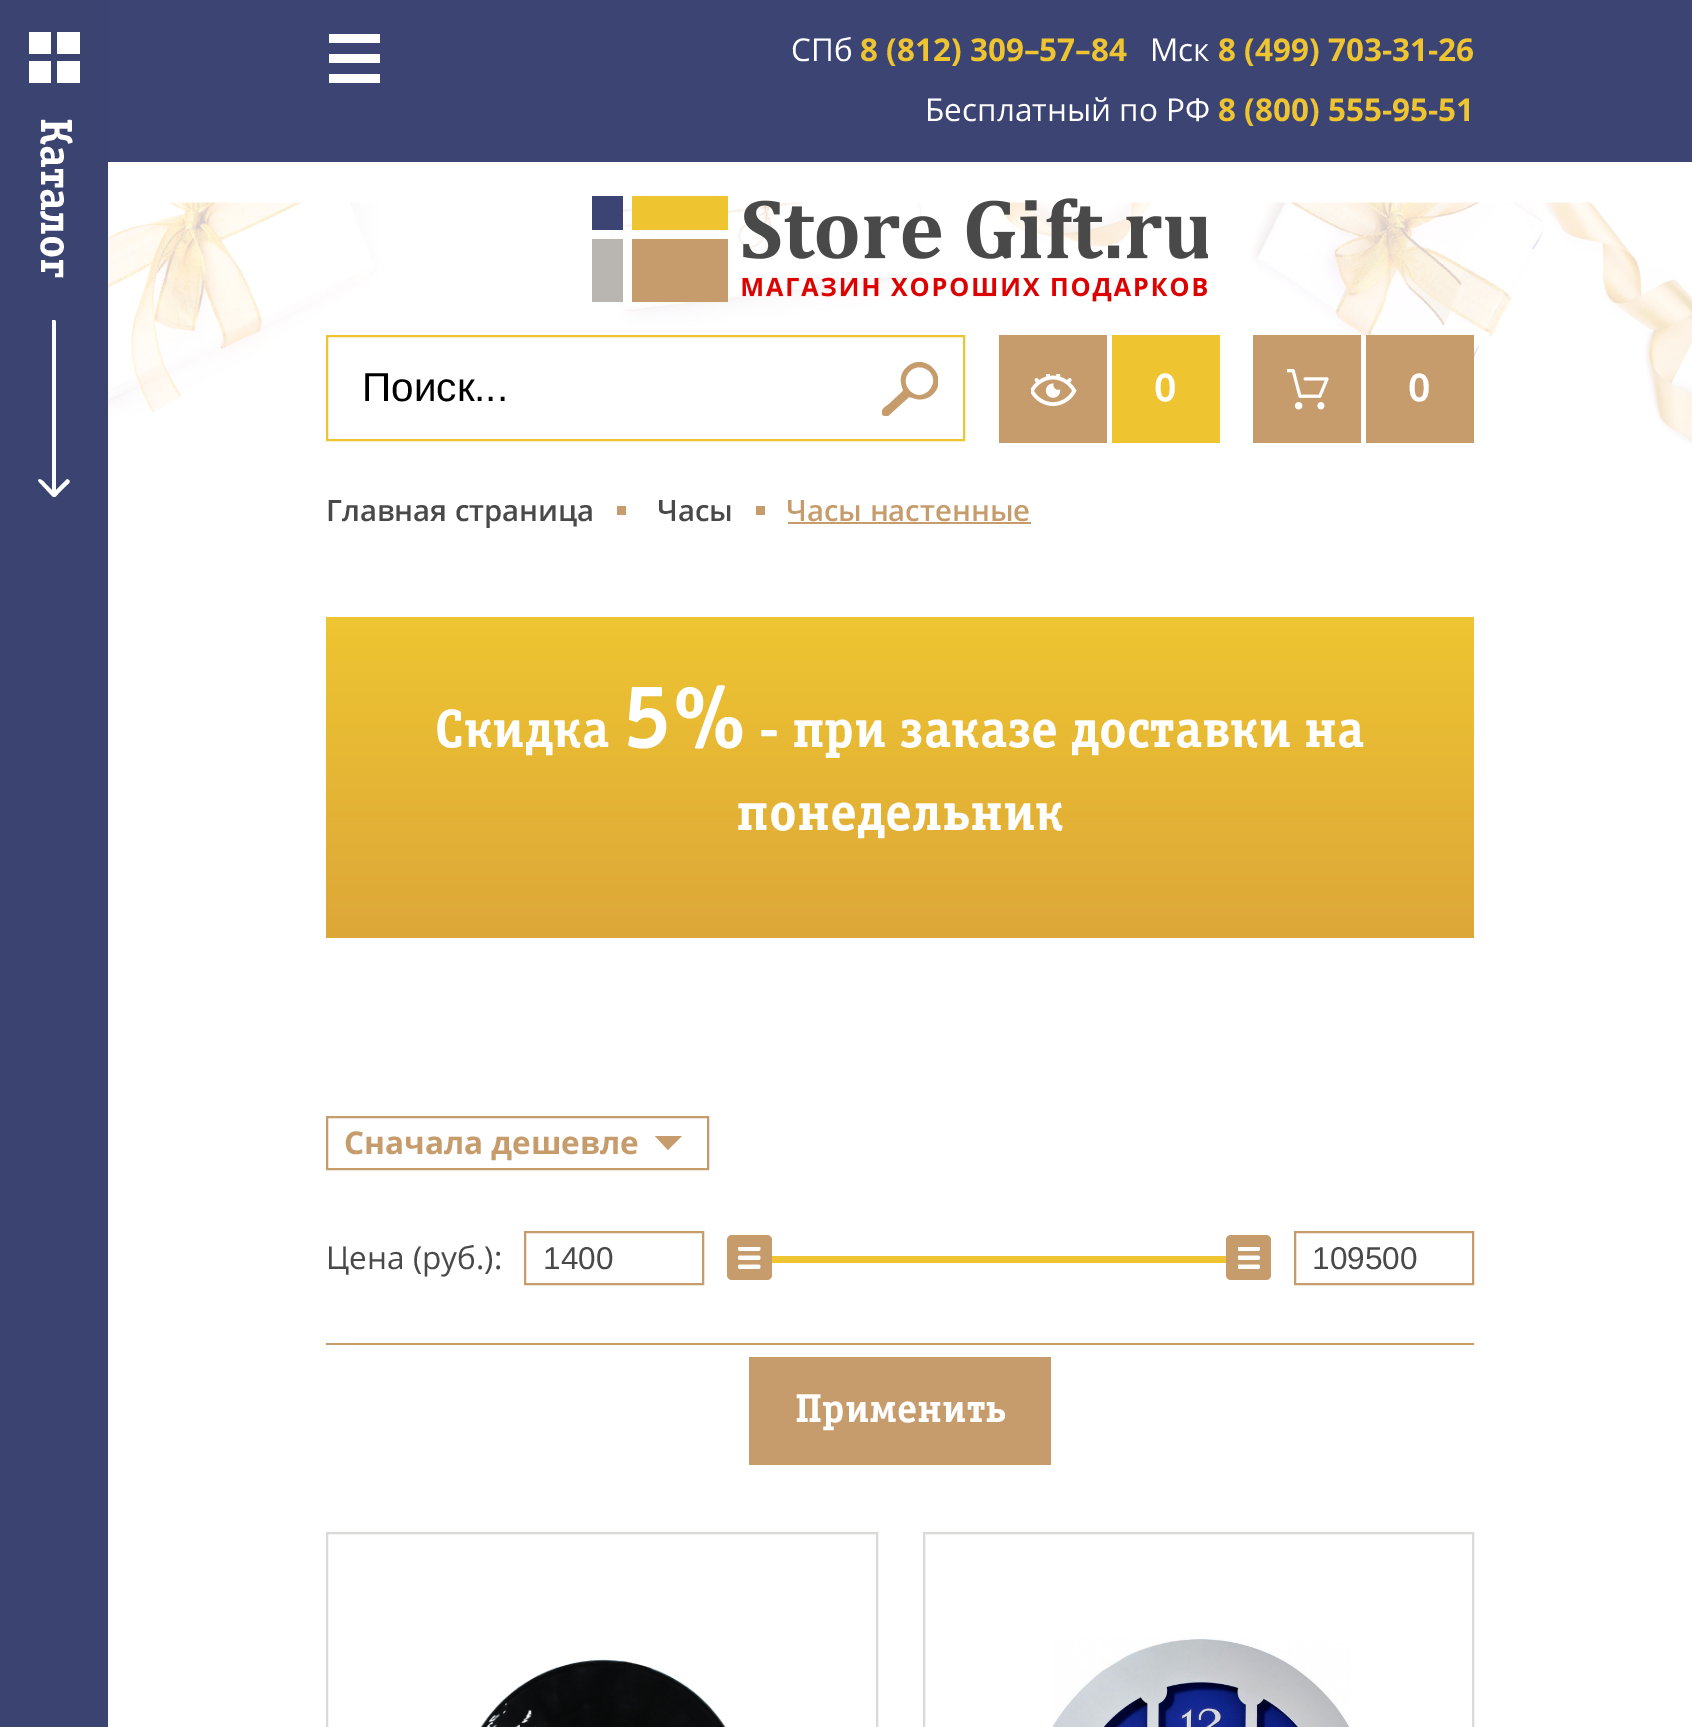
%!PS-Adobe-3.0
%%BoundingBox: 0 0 1692 1727
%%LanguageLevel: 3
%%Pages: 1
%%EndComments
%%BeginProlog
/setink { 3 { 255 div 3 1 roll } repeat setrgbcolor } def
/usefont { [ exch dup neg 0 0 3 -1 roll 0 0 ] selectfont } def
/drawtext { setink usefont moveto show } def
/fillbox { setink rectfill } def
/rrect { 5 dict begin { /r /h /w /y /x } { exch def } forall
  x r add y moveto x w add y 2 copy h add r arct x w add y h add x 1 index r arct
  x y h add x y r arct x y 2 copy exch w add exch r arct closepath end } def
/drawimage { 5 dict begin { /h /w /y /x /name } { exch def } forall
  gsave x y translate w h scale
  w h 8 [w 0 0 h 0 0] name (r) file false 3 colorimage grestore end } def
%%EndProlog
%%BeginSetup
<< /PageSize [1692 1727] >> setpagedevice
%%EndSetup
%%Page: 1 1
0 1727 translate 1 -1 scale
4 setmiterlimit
0 0 1692 1727 255 255 255 fillbox
108 0 1584 162 59 68 114 fillbox
329 54 51 9 255 255 255 fillbox
329 34 51 9 255 255 255 fillbox
329 74 51 9 255 255 255 fillbox
(СПб) 791 61 /OpenSans-Regular 31.5 255 255 255 drawtext
(8 \(812\) 309–57–84) 860 61 /OpenSans-Bold 31.5 238 196 49 drawtext
(Мск) 1150 61 /OpenSans-Regular 31.5 255 255 255 drawtext
(8 \(499\) 703-31-26) 1218 61 /OpenSans-Bold 31.5 238 196 49 drawtext
(Бесплатный по РФ) 925 121 /OpenSans-Regular 31.5 255 255 255 drawtext
(8 \(800\) 555-95-51) 1218 121 /OpenSans-Bold 31.5 238 196 49 drawtext
(assets/img8.rgb) 108 202 1584 242 drawimage
(assets/img1.rgb) 592 196 616 106 drawimage
2 setlinewidth
327 336 637 104 rectstroke
(Поиск...) 362 401 /LiberationSans-Regular 40.5 0 0 0 drawtext
gsave
882 362 56 54 rectclip
198 156 109 setink
933 394 moveto 950 377 924 350 906 368 curveto 896 378 904 390 903 391 curveto 889 404 lineto 887 406 880 409 882 414 curveto 883 416 886 417 888 416 curveto 909 397 lineto 913 398 lineto 920 401 928 399 933 394 curveto closepath 910 391 moveto 897 378 915 359 929 371 curveto 942 383 923 404 910 391 curveto closepath eofill
grestore
999 335 108 108 198 156 109 fillbox
(assets/img2.rgb) 1031 374 46 33 drawimage
1112 335 108 108 238 196 49 fillbox
(0) 1154 401 /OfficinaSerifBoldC-Bold 40.5 255 255 255 drawtext
1253 335 108 108 198 156 109 fillbox
(assets/img3.rgb) 1287 369 42 41 drawimage
1366 335 108 108 198 156 109 fillbox
(0) 1408 401 /OfficinaSerifBoldC-Bold 40.5 255 255 255 drawtext
0 0 108 1727 59 67 113 fillbox
gsave
29 32 52 51 rectclip
255 255 255 setink
28 32 moveto 51 32 lineto 51 54 lineto 28 54 lineto closepath 57 32 moveto 80 32 lineto 80 54 lineto 57 54 lineto closepath 28 61 moveto 51 61 lineto 51 83 lineto 28 83 lineto closepath 57 61 moveto 80 61 lineto 80 83 lineto 57 83 lineto closepath eofill
grestore
/OfficinaSerifBoldC-Bold 45 usefont
255 255 255 setink
gsave 41 118 translate 90 rotate 0 0 moveto (Каталог) show grestore
gsave
38 320 32 177 rectclip
53 497 moveto 54 499 57 495 58 494 curveto 67 485 lineto 68 484 71 482 69 480 curveto 67 479 lineto 56 490 lineto 56 322 lineto 56 320 53 319 52 320 curveto 52 490 lineto 45 483 lineto 45 483 39 476 38 481 curveto 39 482 lineto closepath eofill
grestore
(Главная страница) 326 521 /OpenSans-SemiBold 29.25 73 73 73 drawtext
617 506 9 9 198 156 109 fillbox
(Часы) 657 521 /OpenSans-SemiBold 29.25 73 73 73 drawtext
756 506 9 9 198 156 109 fillbox
(Часы настенные) 786 521 /OpenSans-SemiBold 29.25 198 156 109 drawtext
788 522 243 2 198 156 109 fillbox
gsave 326 617 moveto 1474 617 lineto 1474 938 lineto 326 938 lineto closepath clip newpath
<< /ShadingType 2 /ColorSpace /DeviceRGB /Coords [900 617 900 938] /Extend [true true] /Function << /FunctionType 2 /Domain [0 1] /C0 [0.933 0.773 0.192] /C1 [0.867 0.655 0.224] /N 1 >> >> shfill grestore
(Скидка) 435 747 /OfficinaSerifBoldC-Bold 54 255 255 255 drawtext
(5%) 622 747 /OfficinaSerifBoldC-Bold 90 255 255 255 drawtext
(- при заказе доставки на) 759 747 /OfficinaSerifBoldC-Bold 54 255 255 255 drawtext
(понедельник) 736 830 /OfficinaSerifBoldC-Bold 54 255 255 255 drawtext
198 156 109 setink
327 1117 381 52 rectstroke
(Сначала дешевле) 344 1154 /OpenSans-Bold 31.5 198 156 109 drawtext
655 1136 moveto 682 1136 lineto 668 1150 lineto closepath fill
(Цена \(руб.\):) 326 1269 /OpenSans-Regular 31.5 73 73 73 drawtext
198 156 109 setink
525 1232 178 52 rectstroke
(1400) 543 1269 /LiberationSans-Regular 31.5 73 73 73 drawtext
198 156 109 setink
727 1235 45 45 5 rrect fill
(assets/img4.rgb) 738 1247 23 22 drawimage
772 1256 454 7 238 196 49 fillbox
198 156 109 setink
1226 1235 45 45 5 rrect fill
(assets/img5.rgb) 1238 1247 22 22 drawimage
1295 1232 178 52 rectstroke
(109500) 1312 1269 /LiberationSans-Regular 31.5 73 73 73 drawtext
326 1343 1148 2 198 156 109 fillbox
749 1357 302 108 198 156 109 fillbox
(Применить) 795 1422 /OfficinaSerifBoldC-Bold 40.5 255 255 255 drawtext
220 218 216 setink
327 1533 550 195 rectstroke
(assets/img6.rgb) 480 1659 246 68 drawimage
924 1533 549 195 rectstroke
(assets/img7.rgb) 1052 1638 298 89 drawimage
showpage
%%EOF
